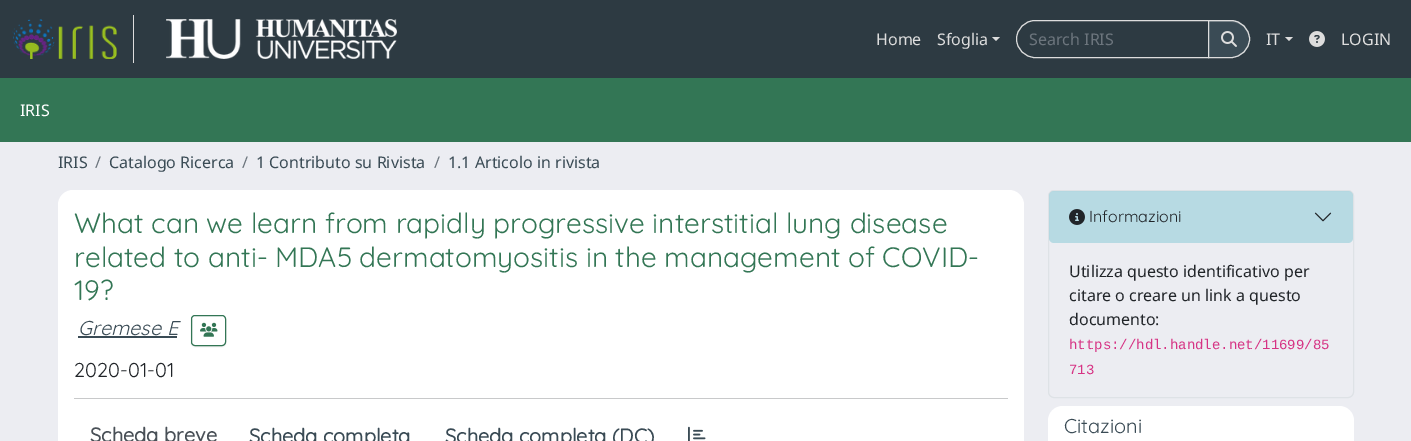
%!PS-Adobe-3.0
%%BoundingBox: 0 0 1411 441
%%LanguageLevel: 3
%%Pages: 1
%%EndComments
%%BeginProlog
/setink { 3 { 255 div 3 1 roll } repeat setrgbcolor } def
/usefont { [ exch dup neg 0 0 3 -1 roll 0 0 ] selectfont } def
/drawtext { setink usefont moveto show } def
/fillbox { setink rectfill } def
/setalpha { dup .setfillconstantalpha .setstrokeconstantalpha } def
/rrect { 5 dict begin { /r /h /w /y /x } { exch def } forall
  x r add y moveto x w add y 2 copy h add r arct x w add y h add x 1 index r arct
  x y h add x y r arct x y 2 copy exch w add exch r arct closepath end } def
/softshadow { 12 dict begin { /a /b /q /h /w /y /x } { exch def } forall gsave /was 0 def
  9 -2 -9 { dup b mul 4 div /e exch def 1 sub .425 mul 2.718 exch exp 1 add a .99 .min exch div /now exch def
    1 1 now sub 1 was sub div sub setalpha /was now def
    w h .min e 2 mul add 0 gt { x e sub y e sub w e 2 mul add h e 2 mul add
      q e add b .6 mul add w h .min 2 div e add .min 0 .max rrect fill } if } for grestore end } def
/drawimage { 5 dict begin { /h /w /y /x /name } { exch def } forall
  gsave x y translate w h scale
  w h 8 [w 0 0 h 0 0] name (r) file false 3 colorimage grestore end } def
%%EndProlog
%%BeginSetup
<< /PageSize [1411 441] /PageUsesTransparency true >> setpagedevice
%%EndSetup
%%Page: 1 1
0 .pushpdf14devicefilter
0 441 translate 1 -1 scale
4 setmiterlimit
0 0 1411 441 236 237 242 fillbox
0 0 1411 78 45 58 66 fillbox
133 15 1 48 221 221 221 fillbox
(assets/img1.rgb) 12 19 105 40 drawimage
(assets/img2.rgb) 166 19 231 40 drawimage
(Home) 876 45 /NotoSans-Regular 16 221 221 221 drawtext
(Sfoglia) 937 45 /NotoSans-Regular 16 221 221 221 drawtext
992 37 moveto 1000 37 lineto 996 41 lineto closepath fill
1035 20.5 moveto 1208.5 20.5 lineto 1208.5 57.5 lineto 1035 57.5 lineto 1025 57.5 1016.5 49 1016.5 39 curveto 1016.5 29 1025 20.5 1035 20.5 curveto closepath stroke
(Search IRIS) 1029 45 /NotoSans-Regular 16 108 117 125 drawtext
0 0 0 setink
1208 21 42 38 19 0.5 0.07 softshadow
58 75 85 setink
1208 20 moveto 1231 20 lineto 1241.5 20 1250 28.5 1250 39 curveto 1250 49.5 1241.5 58 1231 58 curveto 1208 58 lineto closepath fill
88 102 111 setink
1209 22 moveto 1231 22 lineto 1241 22 1249 30 1249 39 curveto 1249 31 1243 23 1235 21 curveto 1209 21 lineto closepath fill
221 221 221 setink
1208.5 20.5 moveto 1231 20.5 lineto 1241 20.5 1249.5 29 1249.5 39 curveto 1249.5 49 1241 57.5 1231 57.5 curveto 1208.5 57.5 lineto closepath stroke
(assets/img3.rgb) 1221 31 16 16 drawimage
(IT) 1266 45 /NotoSans-Regular 16 221 221 221 drawtext
1285 37 moveto 1293 37 lineto 1289 41 lineto closepath fill
(assets/img4.rgb) 1309 31 16 16 drawimage
(LOGIN) 1341 45 /NotoSans-Regular 16 221 221 221 drawtext
0 78 1411 64 51 118 85 fillbox
(IRIS) 20 116 /NotoSans-Regular 16 255 255 255 drawtext
(IRIS) 58 168 /NotoSans-Regular 16 58 75 85 drawtext
(/) 95 168 /NotoSans-Regular 16 108 117 125 drawtext
(Catalogo Ricerca) 109 168 /NotoSans-Regular 16 58 75 85 drawtext
(/) 242 168 /NotoSans-Regular 16 108 117 125 drawtext
(1 Contributo su Rivista) 256 168 /NotoSans-Regular 16 58 75 85 drawtext
(/) 434 168 /NotoSans-Regular 16 108 117 125 drawtext
(1.1 Articolo in rivista) 448 168 /NotoSans-Regular 16 58 75 85 drawtext
255 255 255 setink
58 190 966 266 15 rrect fill
(What can we learn from rapidly progressive interstitial lung disease) 74 233 /Quicksand-Light 28 51 118 85 drawtext
(related to anti- MDA5 dermatomyositis in the management of COVID-) 74 267 /Quicksand-Light 28 51 118 85 drawtext
(19?) 74 300 /Quicksand-Light 28 51 118 85 drawtext
(Gremese E) 78 335 /Quicksand-LightItalic 20 58 75 85 drawtext
78 336 99 2 58 75 85 fillbox
gsave
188 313 moveto 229 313 lineto 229 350 lineto 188 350 lineto closepath 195 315 moveto 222 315 lineto 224 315 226 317 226 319 curveto 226 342 lineto 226 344 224 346 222 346 curveto 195 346 lineto 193 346 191 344 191 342 curveto 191 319 lineto 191 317 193 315 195 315 curveto closepath eoclip newpath
0 0 0 setink
191 316 35 31 4 0.5 0.07 softshadow
grestore
51 118 85 setink
191.5 315.5 34 30 3.5 rrect stroke
(assets/img5.rgb) 200 322 18 15 drawimage
(2020-01-01) 74 377 /Quicksand-Light 20 33 37 41 drawtext
74 398 934 1 200 201 202 fillbox
(Scheda breve) 90 442 /Quicksand-Bold 20 73 80 87 drawtext
(Scheda completa) 249 443 /Quicksand-Bold 20 58 75 85 drawtext
(Scheda completa \(DC\)) 445 443 /Quicksand-Bold 20 58 75 85 drawtext
(assets/img6.rgb) 688 426 18 15 drawimage
222 226 230 setink
1048.5 190.5 305 207 5.5 rrect stroke
0.25 setalpha
23 162 184 setink
1049 191 304 52 5 rrect fill
1 setalpha
(assets/img7.rgb) 1069 209 16 16 drawimage
(Informazioni) 1089 222 /Quicksand-Light 16 33 37 41 drawtext
(assets/img8.rgb) 1314 212 18 10 drawimage
(Utilizza questo identificativo per) 1069 277 /NotoSans-Regular 16 33 37 41 drawtext
(citare o creare un link a questo) 1069 301 /NotoSans-Regular 16 33 37 41 drawtext
(documento:) 1069 325 /NotoSans-Regular 16 33 37 41 drawtext
(https://hdl.handle.net/11699/85) 1069 349 /LiberationMono-Regular 14 214 51 132 drawtext
(713) 1069 374 /LiberationMono-Regular 14 214 51 132 drawtext
255 255 255 setink
1063 406 moveto 1339 406 lineto 1347.5 406 1354 412.5 1354 421 curveto 1354 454 lineto 1048 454 lineto 1048 421 lineto 1048 412.5 1054.5 406 1063 406 curveto closepath fill
(Citazioni) 1064 433 /Quicksand-Light 20 58 75 85 drawtext
.poppdf14devicefilter showpage
%%EOF
